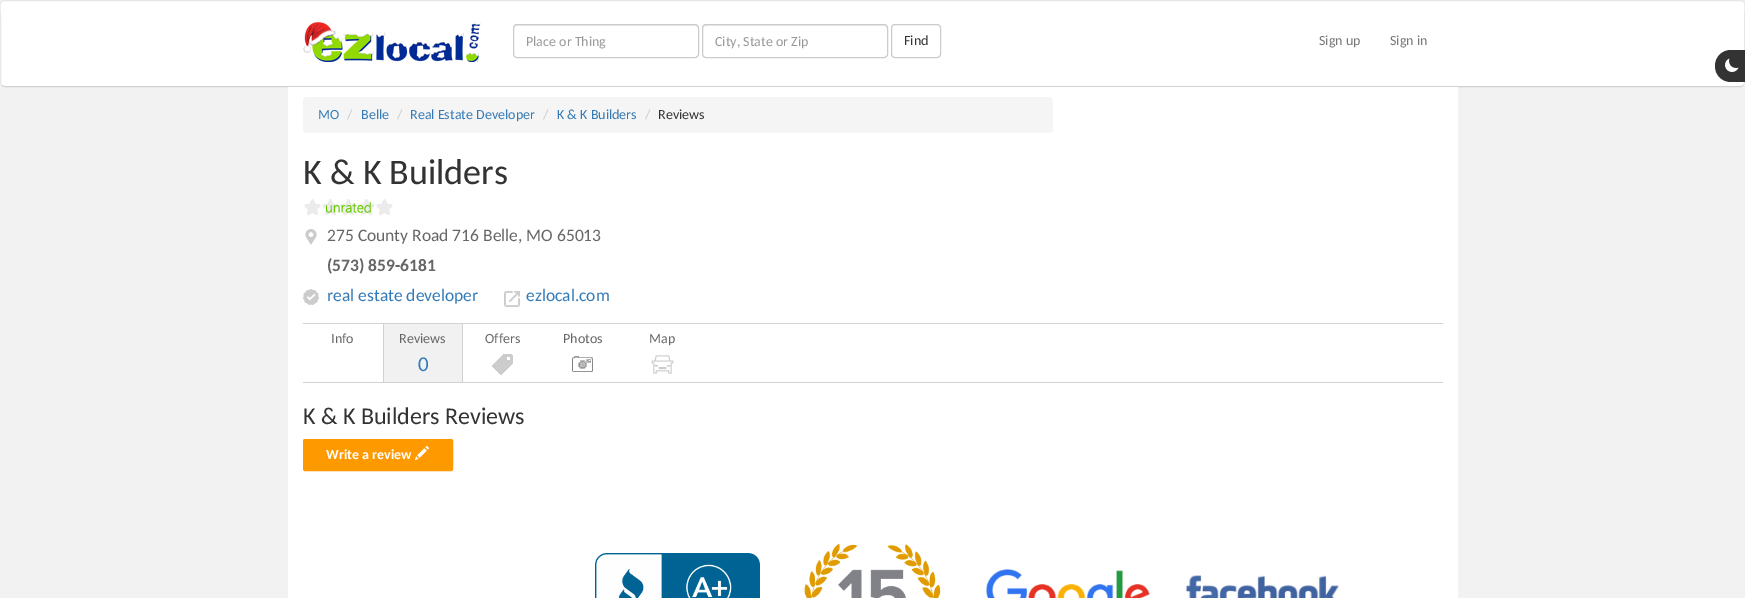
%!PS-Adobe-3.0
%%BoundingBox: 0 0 1745 598
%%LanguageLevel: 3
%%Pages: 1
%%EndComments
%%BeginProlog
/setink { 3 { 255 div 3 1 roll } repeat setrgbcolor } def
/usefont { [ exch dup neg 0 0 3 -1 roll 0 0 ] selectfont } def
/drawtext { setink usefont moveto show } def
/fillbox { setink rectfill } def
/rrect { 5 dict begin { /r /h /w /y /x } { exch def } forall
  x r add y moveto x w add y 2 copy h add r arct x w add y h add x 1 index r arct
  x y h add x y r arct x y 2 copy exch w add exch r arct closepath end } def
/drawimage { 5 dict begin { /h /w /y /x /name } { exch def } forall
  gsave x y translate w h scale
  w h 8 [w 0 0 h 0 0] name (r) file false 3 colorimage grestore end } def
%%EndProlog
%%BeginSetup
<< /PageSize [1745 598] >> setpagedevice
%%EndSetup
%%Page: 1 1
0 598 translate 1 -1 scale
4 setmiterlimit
0 0 1745 598 242 242 242 fillbox
255 255 255 setink
0 0 1745 87 4 rrect fill
210 210 210 setink
1743.5 85.5 moveto 1741 86.5 lineto 4 86.5 lineto 1.5 85.5 lineto stroke
231 231 231 setink
1.5 85.5 moveto 0.5 83 lineto 0.5 17 lineto 0.5 10.5 -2 0.5 4 0.5 curveto 1741 0.5 lineto 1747 0.5 1744.5 10.5 1744.5 17 curveto 1744.5 83 lineto 1743.5 85.5 lineto stroke
(assets/img1.rgb) 303 22 178 40 drawimage
236 236 236 setink
517 26 moveto 696 26 lineto 697 27 lineto 698 29 lineto 698 27 697 25 695 25 curveto 516 25 lineto 514 26 514 27 514 29 curveto 514 27 515 26 517 26 curveto closepath fill
204 204 204 setink
513.5 24.5 185 33 3.5 rrect stroke
(Place or Thing) 526 46 /Carlito-Regular 14 153 153 153 drawtext
236 236 236 setink
706 26 moveto 885 26 lineto 886 27 lineto 887 29 lineto 887 27 886 25 884 25 curveto 705 25 lineto 703 26 703 27 703 29 curveto 703 27 704 26 706 26 curveto closepath fill
204 204 204 setink
702.5 24.5 185 33 3.5 rrect stroke
(City, State or Zip) 715 46 /Carlito-Regular 14 153 153 153 drawtext
204 204 204 setink
891.5 24.5 49 33 3.5 rrect stroke
(Find) 904 45 /Carlito-Regular 14 51 51 51 drawtext
(Sign up) 1319 45 /Carlito-Regular 14 119 119 119 drawtext
(Sign in) 1390 45 /Carlito-Regular 14 119 119 119 drawtext
51 51 51 setink
1731 50 moveto 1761 50 lineto 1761 82 lineto 1731 82 lineto 1722 82 1715 75 1715 66 curveto 1715 57 1722 50 1731 50 curveto closepath fill
(assets/img2.rgb) 1725 58 14 14 drawimage
288 87 1170 511 255 255 255 fillbox
245 245 245 setink
303 97 750 36 4 rrect fill
(MO) 318 119 /Carlito-Regular 14 51 122 183 drawtext
(/) 347 119 /Carlito-Regular 14 204 204 204 drawtext
(Belle) 361 119 /Carlito-Regular 14 51 122 183 drawtext
(/) 397 119 /Carlito-Regular 14 204 204 204 drawtext
(Real Estate Developer) 410 119 /Carlito-Regular 14 51 122 183 drawtext
(/) 543 119 /Carlito-Regular 14 204 204 204 drawtext
(K & K Builders) 557 119 /Carlito-Regular 14 51 122 183 drawtext
(/) 645 119 /Carlito-Regular 14 204 204 204 drawtext
(Reviews) 658 119 /Carlito-Regular 14 51 51 51 drawtext
(K & K Builders) 303 184 /Carlito-Regular 36 51 51 51 drawtext
(assets/img3.rgb) 304 199 89 17 drawimage
(assets/img4.rgb) 305 229 12 16 drawimage
(275 County Road 716 Belle, MO 65013) 327 241 /Carlito-Regular 17.5 102 102 102 drawtext
(\(573\) 859-6181) 327 271 /Carlito-Bold 17.5 102 102 102 drawtext
(assets/img5.rgb) 303 289 16 16 drawimage
(real estate developer) 327 301 /Carlito-Regular 17.5 51 122 183 drawtext
(assets/img6.rgb) 504 291 16 16 drawimage
(ezlocal.com) 526 301 /Carlito-Regular 17.5 51 122 183 drawtext
303 323 1140 1 210 210 210 fillbox
303 382 1140 1 210 210 210 fillbox
(Info) 331 343 /Carlito-Regular 14 102 102 102 drawtext
384 324 78 58 241 241 241 fillbox
462 324 1 58 210 210 210 fillbox
383 324 1 58 210 210 210 fillbox
(Reviews) 399 343 /Carlito-Regular 14 102 102 102 drawtext
(0) 418 371 /Carlito-Regular 21 51 122 183 drawtext
(Offers) 485 343 /Carlito-Regular 14 102 102 102 drawtext
(assets/img7.rgb) 492 354 21 21 drawimage
(Photos) 563 343 /Carlito-Regular 14 102 102 102 drawtext
(assets/img8.rgb) 572 356 21 16 drawimage
(Map) 649 343 /Carlito-Regular 14 102 102 102 drawtext
(assets/img9.rgb) 651 355 23 19 drawimage
(K & K Builders Reviews) 303 424 /Carlito-Regular 24 51 51 51 drawtext
255 153 0 setink
303.5 439.5 149 31 1.5 rrect gsave fill grestore
stroke
(Write a review) 326 459 /Carlito-Bold 14 255 255 255 drawtext
(assets/img10.rgb) 414 445 16 16 drawimage
(assets/img11.rgb) 595 553 165 45 drawimage
(assets/img12.rgb) 804 543 137 55 drawimage
(assets/img13.rgb) 986 569 164 29 drawimage
(assets/img14.rgb) 1185 575 154 23 drawimage
showpage
%%EOF
